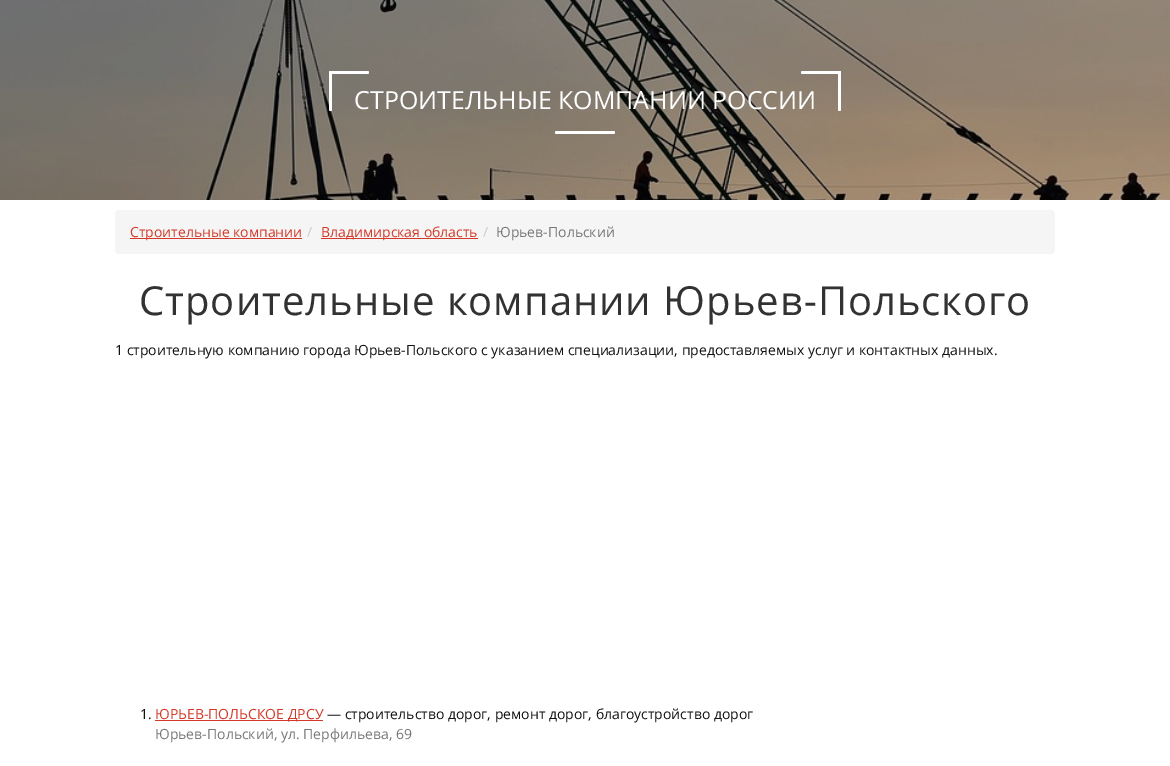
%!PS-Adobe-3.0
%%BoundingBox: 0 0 1170 766
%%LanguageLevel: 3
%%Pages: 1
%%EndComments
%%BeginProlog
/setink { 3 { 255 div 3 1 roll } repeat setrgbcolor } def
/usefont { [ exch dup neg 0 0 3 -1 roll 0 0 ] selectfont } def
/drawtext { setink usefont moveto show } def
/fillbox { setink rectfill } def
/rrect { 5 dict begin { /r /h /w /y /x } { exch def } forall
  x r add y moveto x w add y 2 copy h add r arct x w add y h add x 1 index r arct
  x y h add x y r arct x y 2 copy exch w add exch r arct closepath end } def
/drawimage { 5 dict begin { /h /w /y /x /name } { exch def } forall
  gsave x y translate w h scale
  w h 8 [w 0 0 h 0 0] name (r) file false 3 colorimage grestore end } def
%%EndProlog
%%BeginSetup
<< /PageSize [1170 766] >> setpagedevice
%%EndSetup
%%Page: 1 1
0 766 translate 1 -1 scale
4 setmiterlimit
0 0 1170 766 255 255 255 fillbox
(assets/img1.rgb) 0 0 1170 200 drawimage
329 71 40 3 1.5 rrect fill
329 71 3 40 1.5 rrect fill
(СТРОИТЕЛЬНЫЕ КОМПАНИИ РОССИИ) 354 109 /OpenSans-Regular 25 255 255 255 drawtext
801 71 40 3 1.5 rrect fill
838 71 3 40 1.5 rrect fill
555 131 60 3 1.5 rrect fill
245 245 245 setink
115 210 940 44 4 rrect fill
130 238 172 1 211 56 40 fillbox
(Строительные компании) 130 237 /OpenSans-Regular 14 211 56 40 drawtext
(/) 307 237 /OpenSans-Regular 14 204 204 204 drawtext
321 238 157 1 211 56 40 fillbox
(Владимирская область) 321 237 /OpenSans-Regular 14 211 56 40 drawtext
(/) 483 237 /OpenSans-Regular 14 204 204 204 drawtext
(Юрьев-Польский) 496 237 /OpenSans-Regular 14 119 119 119 drawtext
/OpenSans-Regular 40 usefont
50 50 50 setink
139 315 moveto 1 0 (Строительные компании Юрьев-Польского) ashow
(1 строительную компанию города Юрьев-Польского с указанием специализации, предоставляемых услуг и контактных данных.) 115 355 /OpenSans-Regular 14 17 17 17 drawtext
(1.) 140 719 /OpenSans-Regular 14 17 17 17 drawtext
155 720 168 1 211 56 40 fillbox
(ЮРЬЕВ-ПОЛЬСКОЕ ДРСУ) 155 719 /OpenSans-Regular 14 211 56 40 drawtext
(— строительство дорог, ремонт дорог, благоустройство дорог) 327 719 /OpenSans-Regular 14 17 17 17 drawtext
(Юрьев-Польский, ул. Перфильева, 69) 155 739 /OpenSans-Regular 14 119 119 119 drawtext
showpage
%%EOF
